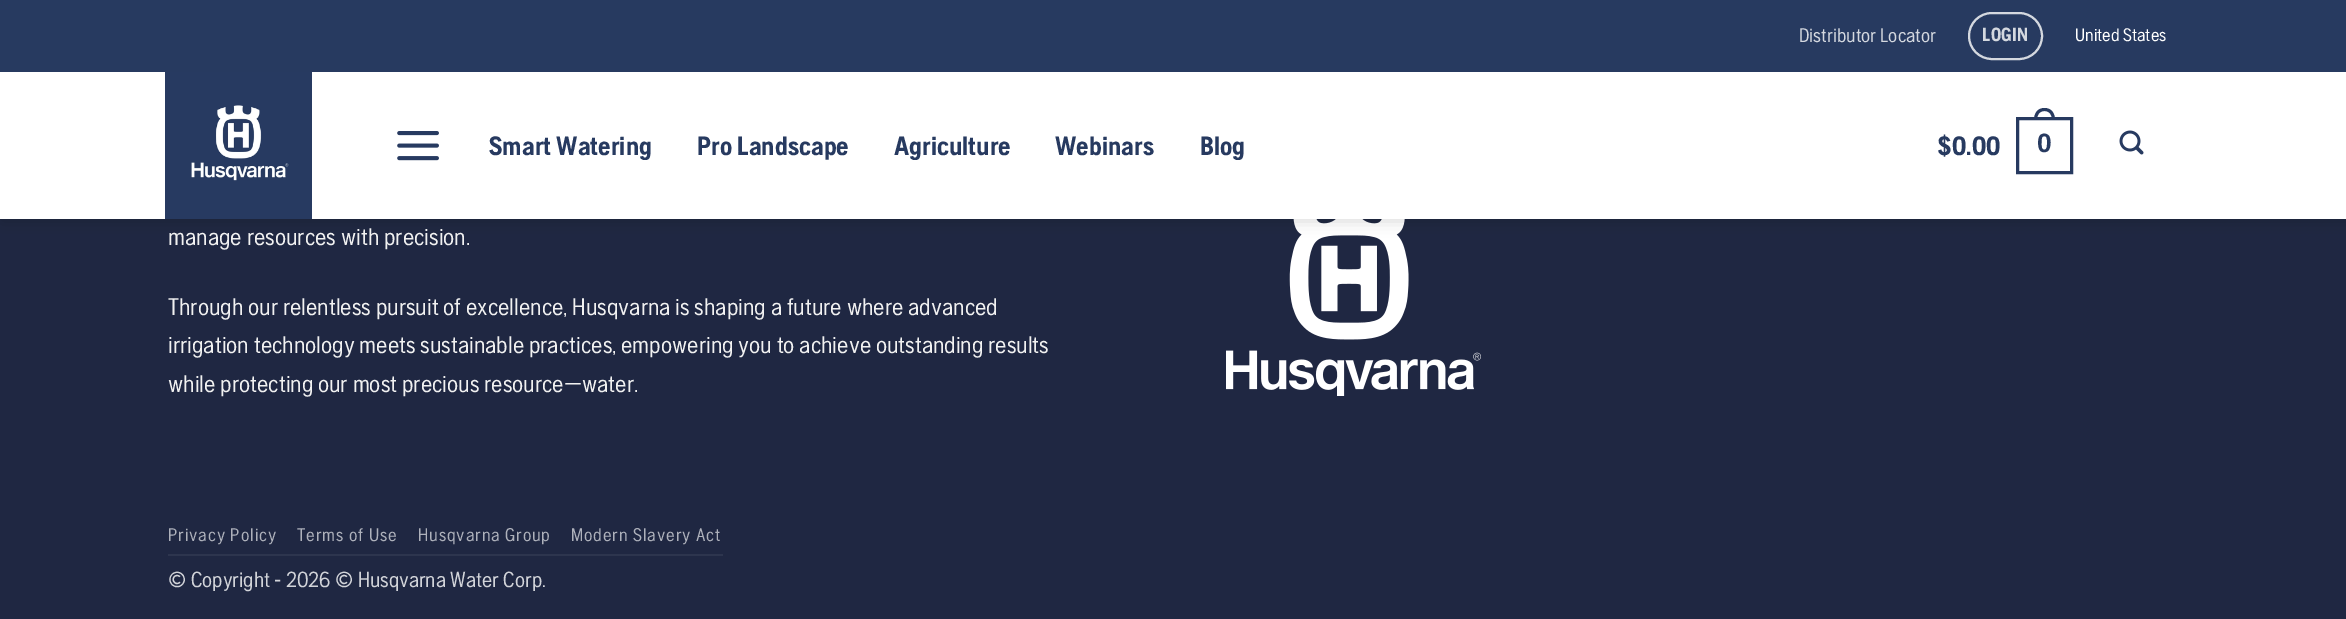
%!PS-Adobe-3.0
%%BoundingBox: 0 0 2346 619
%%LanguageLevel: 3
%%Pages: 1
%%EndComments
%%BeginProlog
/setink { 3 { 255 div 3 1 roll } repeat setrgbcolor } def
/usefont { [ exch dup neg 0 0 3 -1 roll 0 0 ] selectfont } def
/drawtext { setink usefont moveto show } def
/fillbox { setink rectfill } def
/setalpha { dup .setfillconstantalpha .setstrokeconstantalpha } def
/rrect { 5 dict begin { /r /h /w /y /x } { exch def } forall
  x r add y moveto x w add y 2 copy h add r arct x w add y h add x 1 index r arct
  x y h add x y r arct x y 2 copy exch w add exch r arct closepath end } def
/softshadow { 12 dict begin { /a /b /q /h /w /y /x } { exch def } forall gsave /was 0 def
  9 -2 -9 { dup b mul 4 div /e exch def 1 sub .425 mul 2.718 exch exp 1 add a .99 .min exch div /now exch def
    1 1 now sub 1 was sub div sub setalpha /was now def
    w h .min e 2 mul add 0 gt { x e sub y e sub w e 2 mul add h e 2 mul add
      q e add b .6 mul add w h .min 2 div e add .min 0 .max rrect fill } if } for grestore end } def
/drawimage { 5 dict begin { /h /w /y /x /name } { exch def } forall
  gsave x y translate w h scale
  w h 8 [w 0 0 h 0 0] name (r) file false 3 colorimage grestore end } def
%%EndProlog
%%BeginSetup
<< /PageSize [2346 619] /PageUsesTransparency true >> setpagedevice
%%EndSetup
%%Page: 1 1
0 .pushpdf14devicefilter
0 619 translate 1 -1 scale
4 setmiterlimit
0 0 2346 619 31 39 66 fillbox
(assets/img4.rgb) 1226 219 255 177 drawimage
0 0 0 setink
2 2 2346 219 0 7.5 0.15 softshadow
0 0 2346 72 39 58 96 fillbox
(Distributor Locator) 1799 42 /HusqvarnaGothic-Regular 19.75 212 216 223 drawtext
2 setlinewidth
1969 13 73 46 23 rrect stroke
/HusqvarnaGothic-Bold 19 usefont
1982 41 moveto 0.5 0 (LOGIN) ashow
(United States) 2075 41 /HusqvarnaGothic-Regular 18 255 255 255 drawtext
0 72 2346 147 255 255 255 fillbox
(assets/img1.rgb) 165 72 147 147 drawimage
(assets/img2.rgb) 397 131 42 30 drawimage
(Smart Watering) 489 155 /HusqvarnaGothic-Bold 26.5 39 58 96 drawtext
(Pro Landscape) 697 155 /HusqvarnaGothic-Bold 26.5 39 58 96 drawtext
(Agriculture) 894 155 /HusqvarnaGothic-Bold 26.5 39 58 96 drawtext
(Webinars) 1055 155 /HusqvarnaGothic-Bold 26.5 39 58 96 drawtext
(Blog) 1200 155 /HusqvarnaGothic-Bold 26.5 39 58 96 drawtext
($0.00) 1937 155 /HusqvarnaGothic-Bold 26.5 39 58 96 drawtext
3 setlinewidth
2017.5 118.5 54 54 rectstroke
2044.5 108 moveto 2051.5 108 2055 113.5 2055 120 curveto 2034 120 lineto 2034 113.5 2037.5 108 2044.5 108 curveto closepath 2044.5 111 moveto 2050 111 2052 115.5 2052 120 curveto 2037 120 lineto 2037 115.5 2039 111 2044.5 111 curveto closepath eofill
(0) 2037 152 /LiberationSans-Bold 26.5 39 58 96 drawtext
(assets/img3.rgb) 2119 130 25 25 drawimage
(manage resources with precision.) 168 245 /HusqvarnaGothic-Regular 24 241 241 241 drawtext
(Through our relentless pursuit of excellence, Husqvarna is shaping a future where advanced) 168 315 /HusqvarnaGothic-Regular 24 241 241 241 drawtext
(irrigation technology meets sustainable practices, empowering you to achieve outstanding results) 168 353 /HusqvarnaGothic-Regular 24 241 241 241 drawtext
(while protecting our most precious resource—water.) 168 392 /HusqvarnaGothic-Regular 24 241 241 241 drawtext
168 554 555 2 45 53 78 fillbox
/HusqvarnaGothic-Regular 18.25 usefont
174 177 187 setink
168 541 moveto 0.9 0 (Privacy Policy) ashow
297 541 moveto 0.9 0 (Terms of Use) ashow
418 541 moveto 0.9 0 (Husqvarna Group) ashow
571 541 moveto 0.9 0 (Modern Slavery Act) ashow
(© Copyright - 2026 © Husqvarna Water Corp.) 168 587 /HusqvarnaGothic-Regular 21.6 210 212 217 drawtext
.poppdf14devicefilter showpage
%%EOF
